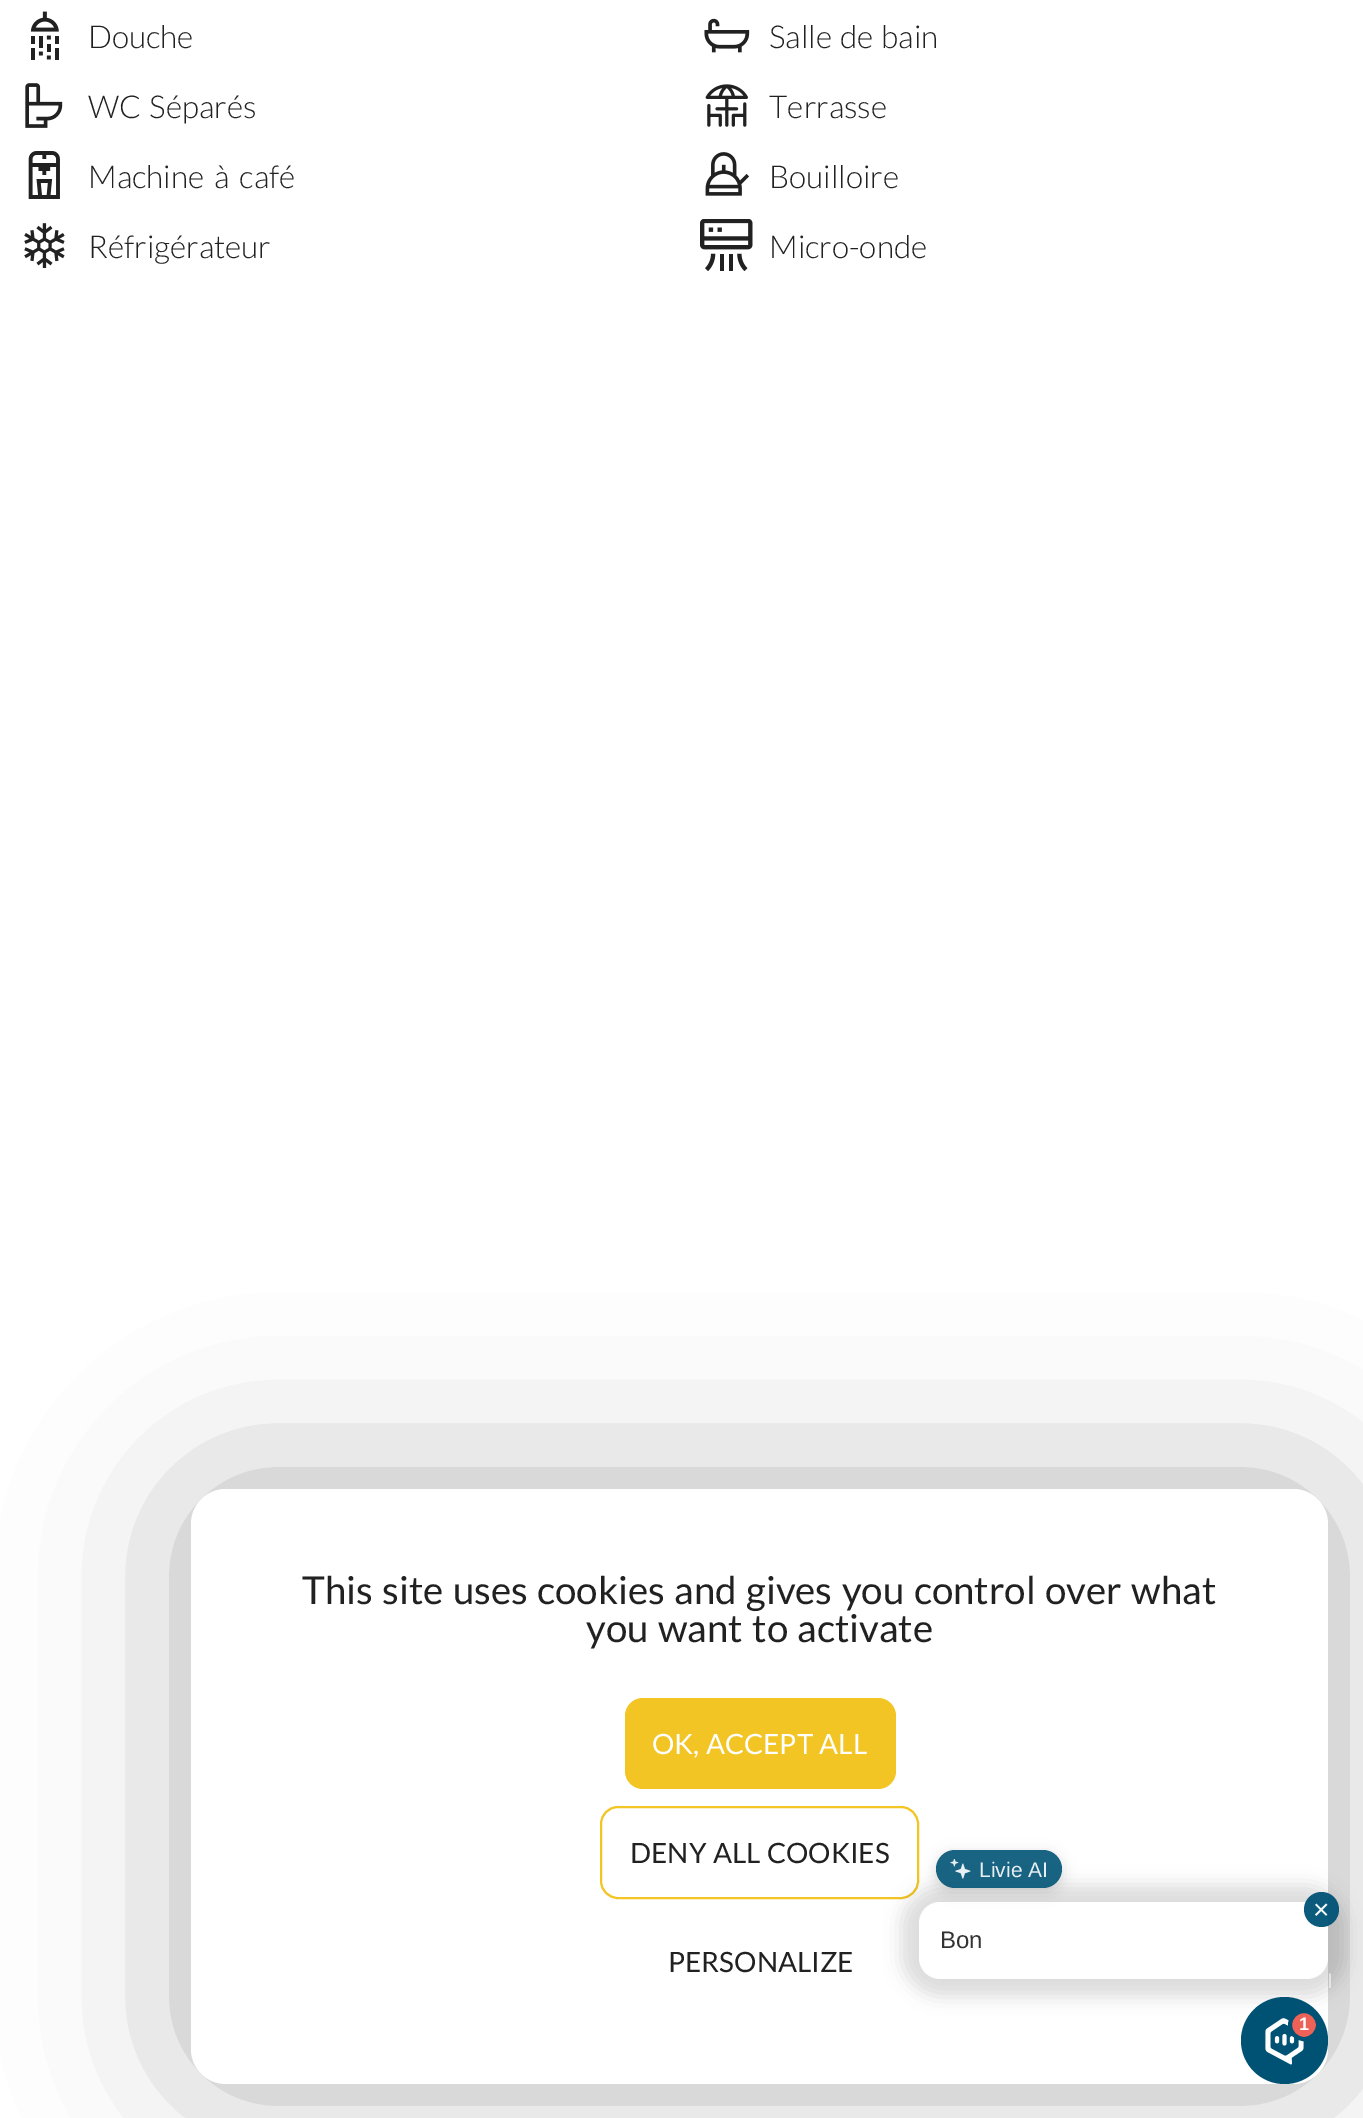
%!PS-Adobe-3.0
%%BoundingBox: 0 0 1363 2118
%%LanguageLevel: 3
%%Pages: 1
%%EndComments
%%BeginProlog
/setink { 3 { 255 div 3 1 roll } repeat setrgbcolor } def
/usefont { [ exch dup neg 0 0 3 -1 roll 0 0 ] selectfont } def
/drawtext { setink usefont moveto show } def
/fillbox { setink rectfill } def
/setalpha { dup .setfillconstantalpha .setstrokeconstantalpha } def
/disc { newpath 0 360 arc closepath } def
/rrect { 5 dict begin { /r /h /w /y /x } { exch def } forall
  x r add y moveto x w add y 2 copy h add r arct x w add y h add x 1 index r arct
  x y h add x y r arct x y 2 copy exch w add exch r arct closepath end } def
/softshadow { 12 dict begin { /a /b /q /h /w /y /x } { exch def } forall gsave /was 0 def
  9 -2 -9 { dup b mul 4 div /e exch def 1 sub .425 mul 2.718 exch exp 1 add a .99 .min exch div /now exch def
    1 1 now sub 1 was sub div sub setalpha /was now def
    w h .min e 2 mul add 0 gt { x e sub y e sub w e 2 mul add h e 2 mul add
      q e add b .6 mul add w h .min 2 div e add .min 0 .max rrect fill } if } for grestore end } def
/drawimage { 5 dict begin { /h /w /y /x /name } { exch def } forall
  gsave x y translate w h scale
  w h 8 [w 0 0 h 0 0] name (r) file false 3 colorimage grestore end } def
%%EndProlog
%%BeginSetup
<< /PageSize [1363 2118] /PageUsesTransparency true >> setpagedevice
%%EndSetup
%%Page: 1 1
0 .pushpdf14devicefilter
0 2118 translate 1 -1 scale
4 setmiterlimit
0 0 1363 2118 255 255 255 fillbox
(assets/img1.rgb) 30 11 29 49 drawimage
(Douche) 88 48 /Lato-Light 31.5 33 33 33 drawtext
(assets/img2.rgb) 704 18 46 35 drawimage
769 48 moveto 2 0 32 (Salle de bain) widthshow
(assets/img3.rgb) 25 83 38 45 drawimage
88 118 moveto 2 0 32 (WC Séparés) widthshow
(assets/img4.rgb) 705 84 43 43 drawimage
(Terrasse) 769 118 /Lato-Light 31.5 33 33 33 drawtext
(assets/img5.rgb) 28 151 32 48 drawimage
88 188 moveto 4 0 32 (Machine à café) widthshow
(assets/img6.rgb) 705 152 45 44 drawimage
(Bouilloire) 769 188 /Lato-Light 31.5 33 33 33 drawtext
(assets/img7.rgb) 24 223 41 45 drawimage
(Réfrigérateur) 88 258 /Lato-Light 31.5 33 33 33 drawtext
(assets/img8.rgb) 700 219 53 52 drawimage
(Micro-onde) 769 258 /Lato-Light 31.5 33 33 33 drawtext
0 0 0 setink
191 1489 1137 595 35 87.5 0.3 softshadow
255 255 255 setink
191 1489 1137 595 35 rrect fill
/Lato-Regular 38.5 usefont
33 33 33 setink
302 1604 moveto 2 0 32 (This site uses cookies and gives you control over what) widthshow
586 1642 moveto 2 0 32 (you want to activate) widthshow
242 197 36 setink
625 1698 271 91 18 rrect fill
/Lato-Regular 28 usefont
255 255 255 setink
652 1754 moveto 1 0 32 (OK, ACCEPT ALL) widthshow
242 197 36 setink
2 setlinewidth
601 1807 317 91 17 rrect stroke
33 33 33 setink
630 1863 moveto 1 0 32 (DENY ALL COOKIES) widthshow
(PERSONALIZE) 668 1972 /Lato-Regular 28 33 33 33 drawtext
gsave
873 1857 moveto 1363 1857 lineto 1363 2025 lineto 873 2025 lineto closepath 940 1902 moveto 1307 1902 lineto 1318.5 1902 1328 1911.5 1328 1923 curveto 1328 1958 lineto 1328 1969.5 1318.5 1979 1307 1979 curveto 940 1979 lineto 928.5 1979 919 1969.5 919 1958 curveto 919 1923 lineto 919 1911.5 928.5 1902 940 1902 curveto closepath eoclip newpath
0 0 0 setink
901 1885 445 112 39 9 0.14 softshadow
grestore
0.95 setalpha
255 255 255 setink
919 1902 409 77 21 rrect fill
gsave
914 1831 moveto 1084 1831 lineto 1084 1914 lineto 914 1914 lineto closepath 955 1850 moveto 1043 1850 lineto 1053.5 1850 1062 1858.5 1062 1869 curveto 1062 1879.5 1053.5 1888 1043 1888 curveto 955 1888 lineto 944.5 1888 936 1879.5 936 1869 curveto 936 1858.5 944.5 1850 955 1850 curveto closepath eoclip newpath
1 setalpha
0 0 0 setink
936 1853 126 39 19.5 7 0.14 softshadow
grestore
0.9 setalpha
0 82 117 setink
936 1850 126 38 19 rrect fill
1 setalpha
(assets/img9.rgb) 950 1859 21 20 drawimage
(Livie AI) 979 1877 /LiberationSans-Regular 21 232 239 243 drawtext
0.95 setalpha
0 82 117 setink
1321.5 1909.5 17.5 disc fill
1 setalpha
(×) 1313 1919 /LiberationSans-Regular 28 243 247 248 drawtext
(Bon) 940 1948 /LiberationSans-Regular 24 51 51 51 drawtext
0 82 117 setink
1284.5 2040.5 43.5 disc fill
(I) 1327 1988 /LiberationSans-Regular 21 229 229 229 drawtext
(assets/img10.rgb) 1265 2018 39 47 drawimage
237 97 87 setink
1304 2025 14 disc gsave fill grestore
0 82 117 setink
4 setlinewidth
stroke
(1) 1299 2030 /LiberationSans-Bold 18 255 255 255 drawtext
.poppdf14devicefilter showpage
%%EOF
